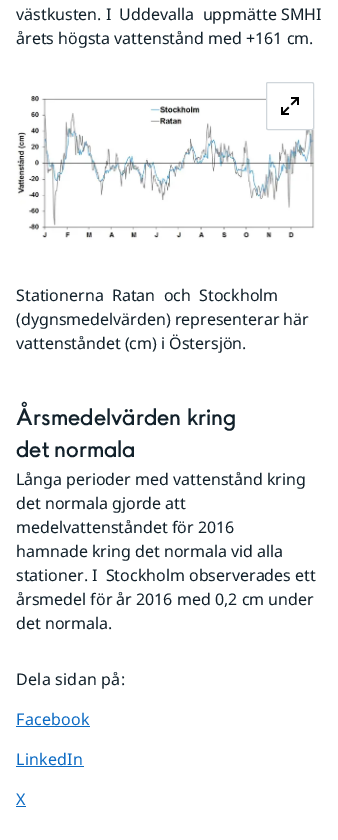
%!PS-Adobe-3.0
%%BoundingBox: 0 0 338 840
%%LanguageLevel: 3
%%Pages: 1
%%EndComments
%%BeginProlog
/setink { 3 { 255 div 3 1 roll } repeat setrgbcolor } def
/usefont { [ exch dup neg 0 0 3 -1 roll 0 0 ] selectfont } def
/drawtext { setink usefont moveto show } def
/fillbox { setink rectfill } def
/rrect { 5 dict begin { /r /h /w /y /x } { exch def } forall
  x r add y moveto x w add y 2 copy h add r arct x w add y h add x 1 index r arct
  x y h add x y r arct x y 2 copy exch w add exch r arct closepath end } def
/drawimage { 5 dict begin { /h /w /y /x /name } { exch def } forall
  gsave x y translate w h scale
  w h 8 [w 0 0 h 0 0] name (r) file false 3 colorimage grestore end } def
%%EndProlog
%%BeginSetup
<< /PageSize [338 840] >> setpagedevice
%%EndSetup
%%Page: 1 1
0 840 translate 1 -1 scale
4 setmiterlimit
0 0 338 840 255 255 255 fillbox
(västkusten. I  Uddevalla  uppmätte SMHI) 16 20 /NotoSans-Regular 16 18 33 43 drawtext
(årets högsta vattenstånd med +161 cm.) 16 44 /NotoSans-Regular 16 18 33 43 drawtext
(assets/img2.rgb) 16 95 299 145 drawimage
255 255 255 setink
266 82 48 48 2 rrect fill
(assets/img1.rgb) 281 97 18 18 drawimage
208 214 219 setink
266.5 82.5 47 47 1.5 rrect stroke
(Stationerna  Ratan  och  Stockholm) 16 301 /NotoSans-Regular 16 18 33 43 drawtext
(\(dygnsmedelvärden\) representerar här) 16 325 /NotoSans-Regular 16 18 33 43 drawtext
(vattenståndet \(cm\) i Östersjön.) 16 349 /NotoSans-Regular 16 18 33 43 drawtext
(Årsmedelvärden kring) 16 425 /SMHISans-Regular 24 18 33 43 drawtext
(det normala) 16 457 /SMHISans-Regular 24 18 33 43 drawtext
(Långa perioder med vattenstånd kring) 16 485 /NotoSans-Regular 16 18 33 43 drawtext
(det normala gjorde att) 16 509 /NotoSans-Regular 16 18 33 43 drawtext
(medelvattenståndet för 2016) 16 533 /NotoSans-Regular 16 18 33 43 drawtext
(hamnade kring det normala vid alla) 16 557 /NotoSans-Regular 16 18 33 43 drawtext
(stationer. I  Stockholm observerades ett) 16 581 /NotoSans-Regular 16 18 33 43 drawtext
(årsmedel för år 2016 med 0,2 cm under) 16 605 /NotoSans-Regular 16 18 33 43 drawtext
(det normala.) 16 629 /NotoSans-Regular 16 18 33 43 drawtext
/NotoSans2-Regular 16 usefont
16 685 moveto 0.25 0 (Dela sidan på:) ashow
/NotoSans-Regular 16 usefont
12 107 196 setink
16 725 moveto 0.25 0 (Facebook) ashow
16 726 74 1 12 107 196 fillbox
16 765 moveto 0.25 0 (LinkedIn) ashow
16 766 68 1 12 107 196 fillbox
16 805 moveto 0.25 0 (X) ashow
16 806 10 1 12 107 196 fillbox
showpage
%%EOF
